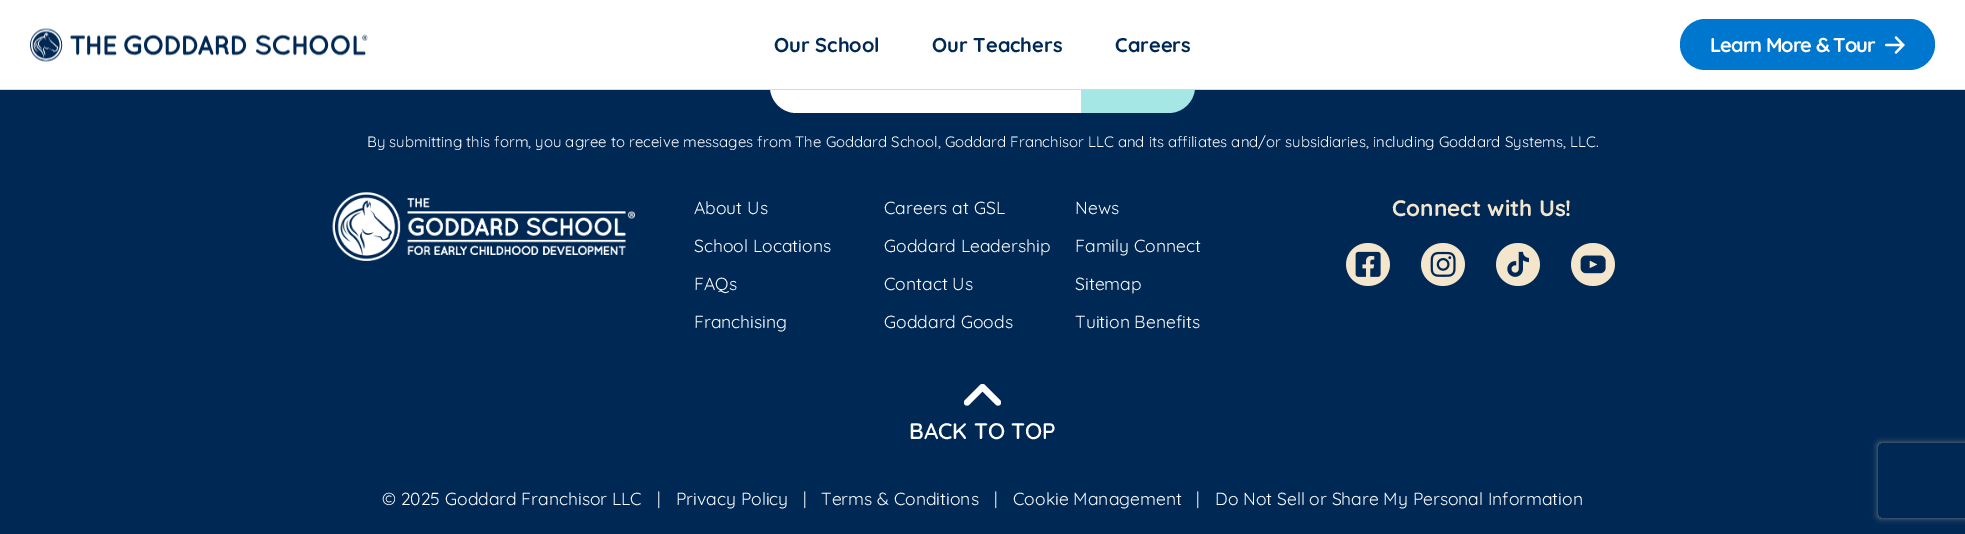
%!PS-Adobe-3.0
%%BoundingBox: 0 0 1965 534
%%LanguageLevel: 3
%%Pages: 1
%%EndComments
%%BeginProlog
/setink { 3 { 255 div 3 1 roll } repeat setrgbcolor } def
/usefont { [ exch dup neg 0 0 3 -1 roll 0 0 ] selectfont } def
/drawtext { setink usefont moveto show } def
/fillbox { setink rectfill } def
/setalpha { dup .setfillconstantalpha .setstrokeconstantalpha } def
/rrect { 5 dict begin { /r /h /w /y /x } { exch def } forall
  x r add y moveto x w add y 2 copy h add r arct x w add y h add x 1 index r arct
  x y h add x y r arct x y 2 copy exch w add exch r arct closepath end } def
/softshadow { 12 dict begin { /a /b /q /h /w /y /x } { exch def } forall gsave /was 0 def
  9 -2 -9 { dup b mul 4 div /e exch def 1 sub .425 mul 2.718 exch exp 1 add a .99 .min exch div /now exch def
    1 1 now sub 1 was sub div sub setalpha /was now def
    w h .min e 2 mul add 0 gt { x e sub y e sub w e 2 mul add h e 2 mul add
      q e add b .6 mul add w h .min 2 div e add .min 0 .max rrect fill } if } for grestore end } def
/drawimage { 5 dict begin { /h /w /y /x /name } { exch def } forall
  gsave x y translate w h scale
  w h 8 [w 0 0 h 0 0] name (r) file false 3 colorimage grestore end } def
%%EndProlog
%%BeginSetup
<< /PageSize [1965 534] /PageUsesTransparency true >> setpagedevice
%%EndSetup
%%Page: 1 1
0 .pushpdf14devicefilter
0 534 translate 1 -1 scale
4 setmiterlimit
0 0 1965 534 0 40 85 fillbox
255 255 255 setink
796.5 60 moveto 1081 60 lineto 1081 113 lineto 796.5 113 lineto 782 113 770 101 770 86.5 curveto 770 72 782 60 796.5 60 curveto closepath fill
165 231 229 setink
1081 60 moveto 1168.5 60 lineto 1183 60 1195 72 1195 86.5 curveto 1195 101 1183 113 1168.5 113 curveto 1081 113 lineto closepath fill
0 0 1965 89 255 255 255 fillbox
0 89 1965 1 216 216 216 fillbox
(assets/img1.rgb) 30 28 338 34 drawimage
(Our School) 774 52 /Quicksand-Bold 20 0 40 85 drawtext
(Our Teachers) 932 52 /Quicksand-Bold 20 0 40 85 drawtext
(Careers) 1115 52 /Quicksand-Bold 20 0 40 85 drawtext
0 119 207 setink
1680 19 255 51 25.5 rrect fill
255 255 255 setink
1710 52 moveto -1 0 (Learn More & Tour) ashow
(assets/img2.rgb) 1885 36 20 18 drawimage
(By submitting this form, you agree to receive messages from The Goddard School, Goddard Franchisor LLC and its affiliates and/or subsidiaries, including Goddard Systems, LLC.) 367 147 /Quicksand-Regular 15 255 255 255 drawtext
(assets/img3.rgb) 332 192 303 69 drawimage
(About Us) 694 214 /Quicksand-Regular 17.5 255 255 255 drawtext
(Careers at GSL) 884 214 /Quicksand-Regular 17.5 255 255 255 drawtext
(News) 1075 214 /Quicksand-Regular 17.5 255 255 255 drawtext
(School Locations) 694 252 /Quicksand-Regular 17.5 255 255 255 drawtext
(Goddard Leadership) 884 252 /Quicksand-Regular 17.5 255 255 255 drawtext
(Family Connect) 1075 252 /Quicksand-Regular 17.5 255 255 255 drawtext
(FAQs) 694 290 /Quicksand-Regular 17.5 255 255 255 drawtext
(Contact Us) 884 290 /Quicksand-Regular 17.5 255 255 255 drawtext
(Sitemap) 1075 290 /Quicksand-Regular 17.5 255 255 255 drawtext
(Franchising) 694 328 /Quicksand-Regular 17.5 255 255 255 drawtext
(Goddard Goods) 884 328 /Quicksand-Regular 17.5 255 255 255 drawtext
(Tuition Benefits) 1075 328 /Quicksand-Regular 17.5 255 255 255 drawtext
(Connect with Us!) 1392 216 /Quicksand-Bold 22.5 243 230 205 drawtext
(assets/img4.rgb) 1346 243 44 43 drawimage
(assets/img5.rgb) 1421 243 44 43 drawimage
(assets/img6.rgb) 1496 243 44 43 drawimage
(assets/img7.rgb) 1571 243 44 43 drawimage
gsave
964 384 37 22 rectclip
255 255 255 setink
6.2 setlinewidth
1 setlinecap
1 setlinejoin
998 402.5 moveto 982.5 387 lineto 967 402.5 moveto 982.5 387 lineto stroke
grestore
(BACK TO TOP) 909 439 /Quicksand-SemiBold 22.5 255 255 255 drawtext
(© 2025 Goddard Franchisor LLC) 382 505 /Quicksand-Regular 17.5 255 255 255 drawtext
(|) 657 505 /Quicksand-Regular 17.5 255 255 255 drawtext
(Privacy Policy) 676 505 /Quicksand-Regular 17.5 255 255 255 drawtext
(|) 803 505 /Quicksand-Regular 17.5 255 255 255 drawtext
(Terms & Conditions) 821 505 /Quicksand-Regular 17.5 255 255 255 drawtext
(|) 994 505 /Quicksand-Regular 17.5 255 255 255 drawtext
(Cookie Management) 1013 505 /Quicksand-Regular 17.5 255 255 255 drawtext
(|) 1196 505 /Quicksand-Regular 17.5 255 255 255 drawtext
(Do Not Sell or Share My Personal Information) 1215 505 /Quicksand-Regular 17.5 255 255 255 drawtext
gsave
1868 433 moveto 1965 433 lineto 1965 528 lineto 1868 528 lineto closepath 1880.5 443 moveto 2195.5 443 lineto 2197 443 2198 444 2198 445.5 curveto 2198 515.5 lineto 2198 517 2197 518 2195.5 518 curveto 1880.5 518 lineto 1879 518 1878 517 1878 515.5 curveto 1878 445.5 lineto 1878 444 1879 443 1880.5 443 curveto closepath eoclip newpath
128 128 128 setink
1878 443 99 75 2.5 3 1 softshadow
grestore
.poppdf14devicefilter showpage
%%EOF
